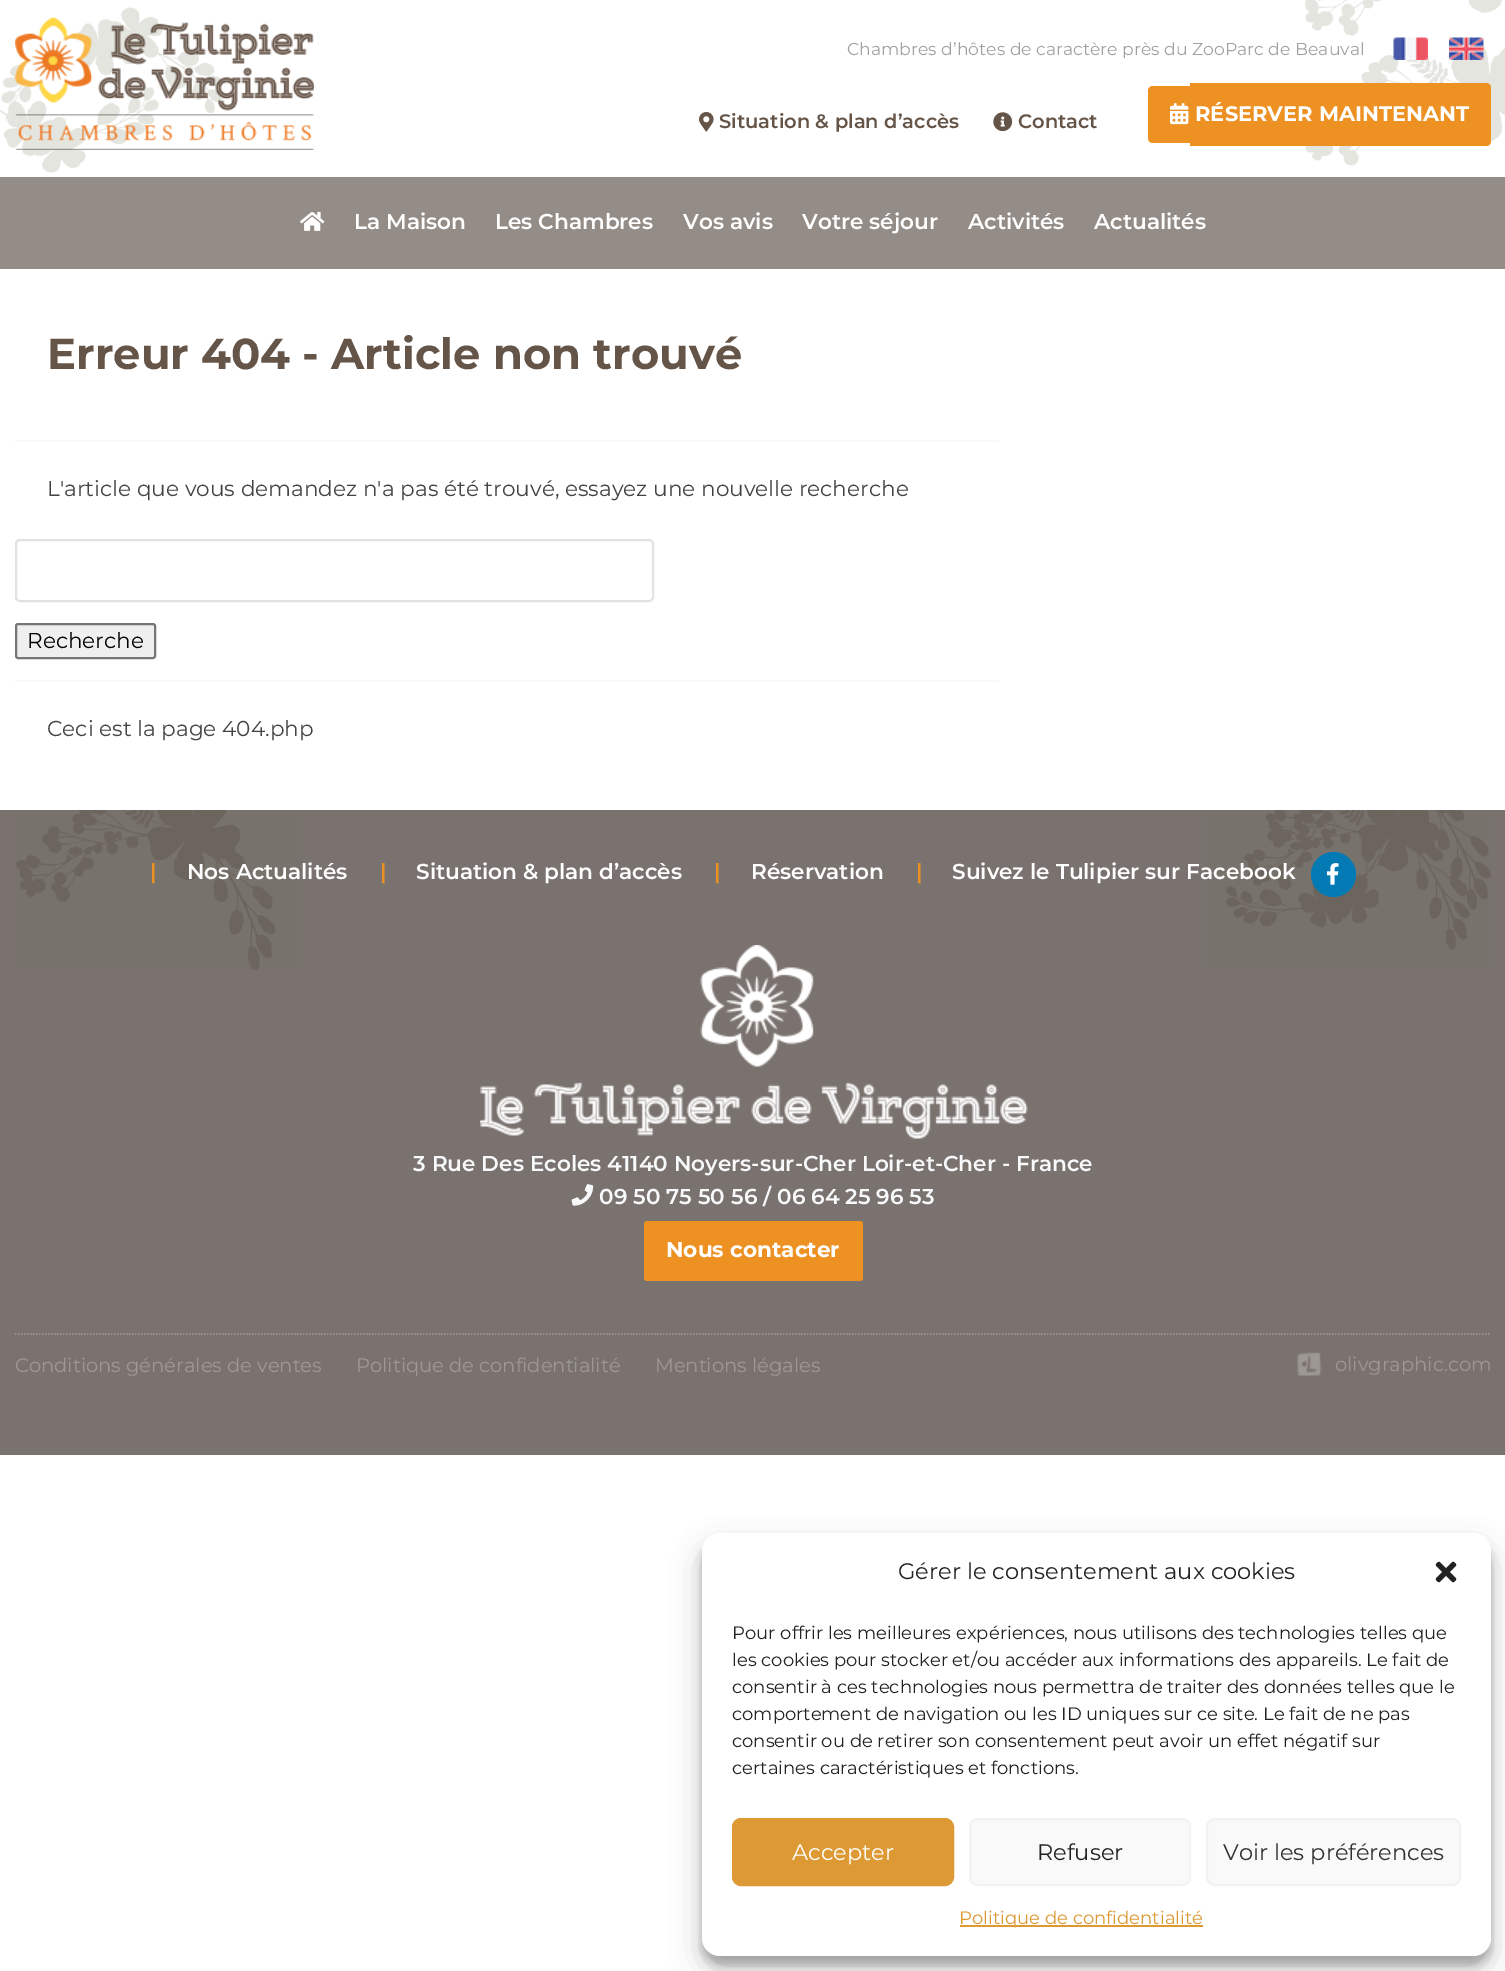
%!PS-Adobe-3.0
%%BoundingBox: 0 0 1505 1971
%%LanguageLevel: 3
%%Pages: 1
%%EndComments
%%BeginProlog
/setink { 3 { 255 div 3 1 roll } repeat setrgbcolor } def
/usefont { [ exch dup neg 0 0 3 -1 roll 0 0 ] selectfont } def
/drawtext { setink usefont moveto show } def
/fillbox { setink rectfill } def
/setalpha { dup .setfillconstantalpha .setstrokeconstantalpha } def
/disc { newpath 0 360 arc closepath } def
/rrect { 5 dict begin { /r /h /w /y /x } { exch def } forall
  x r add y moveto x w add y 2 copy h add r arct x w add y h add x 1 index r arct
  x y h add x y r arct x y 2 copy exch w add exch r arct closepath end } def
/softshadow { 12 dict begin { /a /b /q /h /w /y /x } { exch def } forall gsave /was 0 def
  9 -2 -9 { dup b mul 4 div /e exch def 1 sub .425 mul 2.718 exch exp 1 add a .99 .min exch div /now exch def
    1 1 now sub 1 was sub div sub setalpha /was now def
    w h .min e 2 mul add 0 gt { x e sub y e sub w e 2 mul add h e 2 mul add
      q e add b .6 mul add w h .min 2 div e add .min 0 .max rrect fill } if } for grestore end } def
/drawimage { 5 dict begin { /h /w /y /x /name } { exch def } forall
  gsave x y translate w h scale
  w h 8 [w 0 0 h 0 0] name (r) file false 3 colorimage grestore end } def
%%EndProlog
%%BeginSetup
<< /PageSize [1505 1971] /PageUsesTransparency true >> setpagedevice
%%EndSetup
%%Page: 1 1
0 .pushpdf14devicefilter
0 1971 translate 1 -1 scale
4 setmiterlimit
0 0 1505 1971 255 255 255 fillbox
(assets/img1.rgb) 0 0 1505 173 drawimage
(assets/img2.rgb) 15 17 300 133 drawimage
(Chambres d’hôtes de caractère près du ZooParc de Beauval) 847 55 /Montserrat-Regular 17.25 161 161 161 drawtext
(assets/img3.rgb) 1393 37 35 23 drawimage
(assets/img4.rgb) 1449 37 35 23 drawimage
(assets/img5.rgb) 699 112 15 20 drawimage
(Situation & plan d’accès) 719 128 /Montserrat-SemiBold 19.5 101 84 72 drawtext
(assets/img6.rgb) 993 112 20 20 drawimage
(Contact) 1018 128 /Montserrat-SemiBold 19.5 101 84 72 drawtext
237 145 35 setink
1153 86 moveto 1190 86 lineto 1190 143 lineto 1153 143 lineto 1150 143 1148 141 1148 138 curveto 1148 91 lineto 1148 88 1150 86 1153 86 curveto closepath fill
1190 83 moveto 1486 83 lineto 1489 83 1491 85 1491 88 curveto 1491 141 lineto 1491 144 1489 146 1486 146 curveto 1190 146 lineto closepath fill
(assets/img7.rgb) 1170 103 19 22 drawimage
(RÉSERVER MAINTENANT) 1195 121 /Montserrat-Bold 21 255 255 255 drawtext
0 177 1505 92 148 140 135 fillbox
(assets/img8.rgb) 300 211 25 20 drawimage
(La Maison) 354 229 /Montserrat-SemiBold 21.6 255 255 255 drawtext
(Les Chambres) 495 229 /Montserrat-SemiBold 21.6 255 255 255 drawtext
(Vos avis) 683 229 /Montserrat-SemiBold 21.6 255 255 255 drawtext
(Votre séjour) 802 229 /Montserrat-SemiBold 21.6 255 255 255 drawtext
(Activités) 968 229 /Montserrat-SemiBold 21.6 255 255 255 drawtext
(Actualités) 1094 229 /Montserrat-SemiBold 21.6 255 255 255 drawtext
15 440 984 2 248 249 250 fillbox
(Erreur 404 - Article non trouvé) 47 369 /Montserrat-Bold 43.25 101 84 72 drawtext
(L'article que vous demandez n'a pas été trouvé, essayez une nouvelle recherche) 47 496 /Montserrat-Regular 21.6 67 67 67 drawtext
226 226 226 setink
2 setlinewidth
16 540 637 61 4 rrect stroke
239 239 239 setink
16 624 139 34 2 rrect gsave fill grestore
118 118 118 setink
stroke
(Recherche) 27 648 /Montserrat-Regular 21.6 0 0 0 drawtext
15 680 984 2 248 249 250 fillbox
(Ceci est la page 404.php) 47 736 /Montserrat-Regular 21.6 67 67 67 drawtext
0 810 1505 645 122 114 110 fillbox
(assets/img9.rgb) 16 810 1475 160 drawimage
(|) 150 879 /Montserrat-SemiBold 21.6 236 145 33 drawtext
(Nos Actualités) 187 879 /Montserrat-SemiBold 21.6 255 255 255 drawtext
(|) 380 879 /Montserrat-SemiBold 21.6 236 145 33 drawtext
(Situation & plan d’accès) 416 879 /Montserrat-SemiBold 21.6 255 255 255 drawtext
(|) 714 879 /Montserrat-SemiBold 21.6 236 145 33 drawtext
(Réservation) 751 879 /Montserrat-SemiBold 21.6 255 255 255 drawtext
(|) 916 879 /Montserrat-SemiBold 21.6 236 145 33 drawtext
(Suivez le Tulipier sur Facebook) 952 879 /Montserrat-SemiBold 21.6 255 255 255 drawtext
4 122 181 setink
1333.5 874.5 22.5 disc fill
(assets/img10.rgb) 1326 863 13 22 drawimage
(assets/img11.rgb) 480 945 548 194 drawimage
(3 Rue Des Ecoles 41140 Noyers-sur-Cher Loir-et-Cher - France) 413 1171 /Montserrat-SemiBold 21.6 248 249 250 drawtext
(assets/img12.rgb) 571 1184 23 22 drawimage
(09 50 75 50 56 / 06 64 25 96 53) 599 1204 /Montserrat-SemiBold 21.6 248 249 250 drawtext
237 145 35 setink
644 1221 219 60 3 rrect fill
(Nous contacter) 666 1257 /Montserrat-Bold 21.6 255 255 255 drawtext
158 152 149 setink
1.5 setlinewidth
[1.5 1.5] 0 setdash
15 1334 moveto 1491 1334 lineto stroke
(Conditions générales de ventes) 15 1372 /Montserrat-Regular 19.5 158 152 149 drawtext
(Politique de confidentialité) 356 1372 /Montserrat-Regular 19.5 158 152 149 drawtext
(Mentions légales) 655 1372 /Montserrat-Regular 19.5 158 152 149 drawtext
(assets/img13.rgb) 1297 1352 25 24 drawimage
(olivgraphic.com) 1335 1371 /Montserrat-Regular 19.5 158 152 149 drawtext
0 0 0 setink
702 1542 789 423 18 4.5 0.23 softshadow
702 1548 789 423 18 15 0.19 softshadow
255 255 255 setink
702 1533 789 423 18 rrect fill
(Gérer le consentement aux cookies) 898 1579 /Montserrat-Regular 22.5 34 34 34 drawtext
(assets/img14.rgb) 1435 1561 22 22 drawimage
(Pour offrir les meilleures expériences, nous utilisons des technologies telles que) 732 1639 /Montserrat-Regular 18 34 34 34 drawtext
(les cookies pour stocker et/ou accéder aux informations des appareils. Le fait de) 732 1666 /Montserrat-Regular 18 34 34 34 drawtext
(consentir à ces technologies nous permettra de traiter des données telles que le) 732 1693 /Montserrat-Regular 18 34 34 34 drawtext
(comportement de navigation ou les ID uniques sur ce site. Le fait de ne pas) 732 1720 /Montserrat-Regular 18 34 34 34 drawtext
(consentir ou de retirer son consentement peut avoir un effet négatif sur) 732 1747 /Montserrat-Regular 18 34 34 34 drawtext
(certaines caractéristiques et fonctions.) 732 1774 /Montserrat-Regular 18 34 34 34 drawtext
221 153 51 setink
733 1819 220 66 8 rrect gsave fill grestore
2 setlinewidth
[] 0 setdash
stroke
(Accepter) 792 1860 /Montserrat-Regular 22.5 255 255 255 drawtext
249 249 249 setink
970 1819 220 66 8 rrect gsave fill grestore
242 242 242 setink
stroke
(Refuser) 1037 1860 /Montserrat-Regular 22.5 34 34 34 drawtext
249 249 249 setink
1207 1819 253 66 8 rrect gsave fill grestore
242 242 242 setink
stroke
(Voir les préférences) 1223 1860 /Montserrat-Regular 22.5 51 51 51 drawtext
960 1925 243 2 221 153 51 fillbox
(Politique de confidentialité) 959 1924 /Montserrat-Regular 18 221 153 51 drawtext
.poppdf14devicefilter showpage
%%EOF
